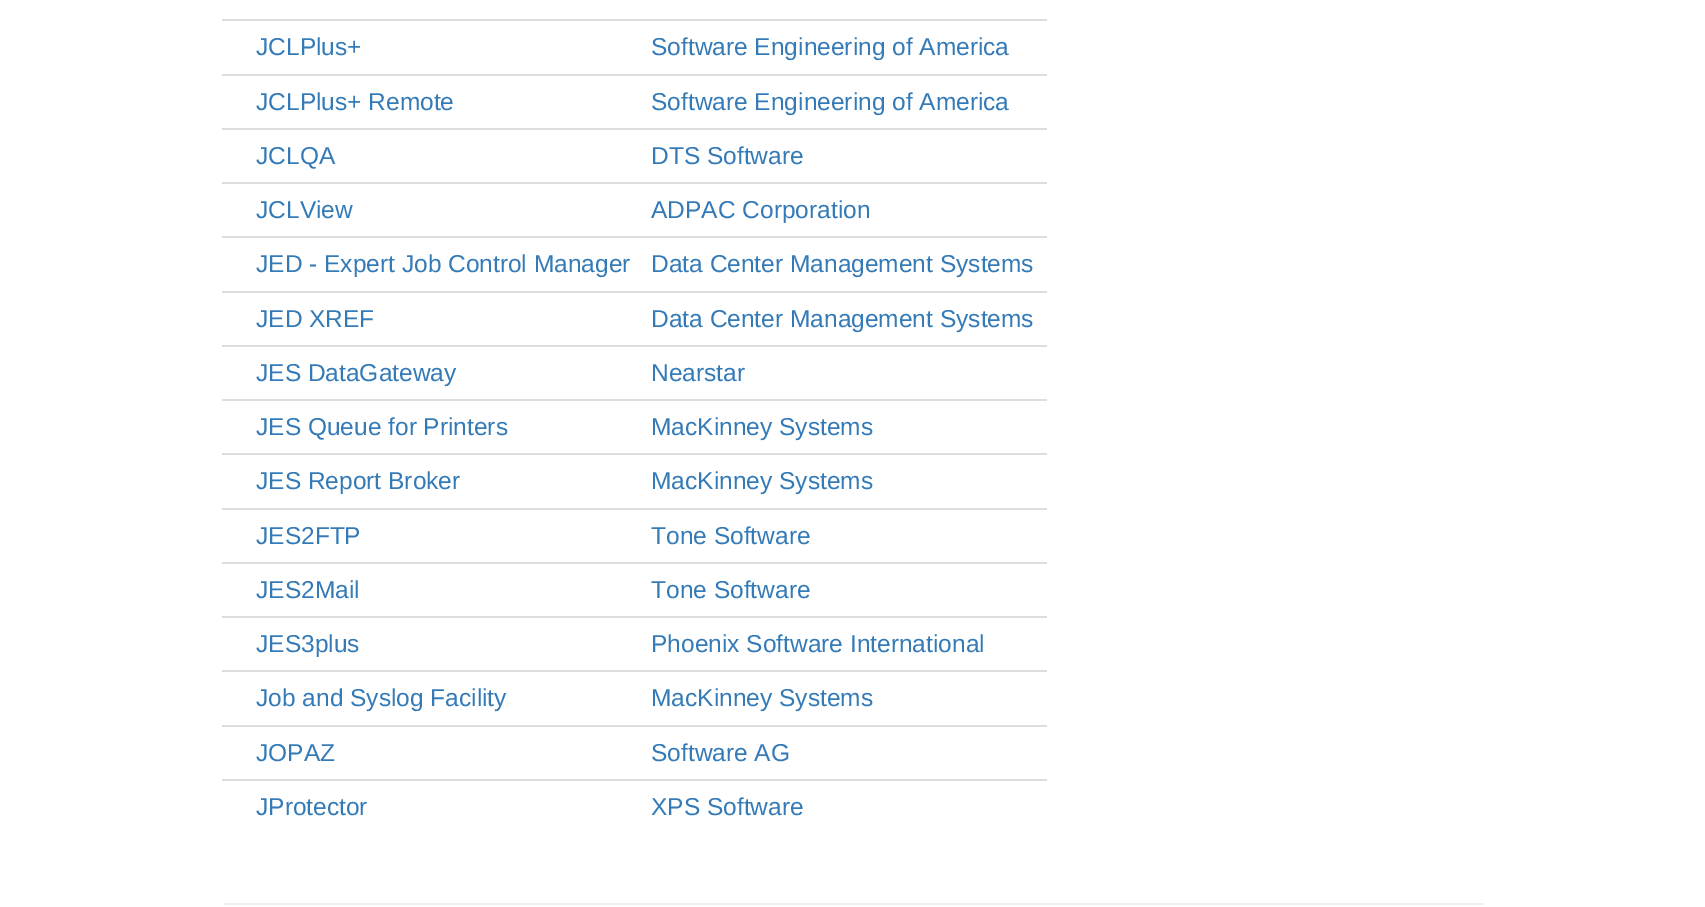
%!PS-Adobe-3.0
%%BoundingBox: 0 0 1705 907
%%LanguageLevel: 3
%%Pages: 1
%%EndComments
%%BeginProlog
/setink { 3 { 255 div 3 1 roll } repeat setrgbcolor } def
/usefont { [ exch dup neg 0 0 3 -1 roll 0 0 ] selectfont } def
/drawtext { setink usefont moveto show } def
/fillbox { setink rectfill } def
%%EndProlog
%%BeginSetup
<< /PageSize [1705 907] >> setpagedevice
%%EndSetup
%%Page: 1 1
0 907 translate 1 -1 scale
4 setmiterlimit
0 0 1705 907 255 255 255 fillbox
(JCLPlus+) 256 55 /LiberationSans-Regular 24.5 51 122 183 drawtext
222 19 825 2 221 221 221 fillbox
(Software Engineering of America) 651 55 /LiberationSans-Regular 24.5 51 122 183 drawtext
(JCLPlus+ Remote) 256 110 /LiberationSans-Regular 24.5 51 122 183 drawtext
222 74 825 2 221 221 221 fillbox
(Software Engineering of America) 651 110 /LiberationSans-Regular 24.5 51 122 183 drawtext
(JCLQA) 256 164 /LiberationSans-Regular 24.5 51 122 183 drawtext
222 128 825 2 221 221 221 fillbox
(DTS Software) 651 164 /LiberationSans-Regular 24.5 51 122 183 drawtext
(JCLView) 256 218 /LiberationSans-Regular 24.5 51 122 183 drawtext
222 182 825 2 221 221 221 fillbox
(ADPAC Corporation) 651 218 /LiberationSans-Regular 24.5 51 122 183 drawtext
(JED - Expert Job Control Manager) 256 272 /LiberationSans-Regular 24.5 51 122 183 drawtext
222 236 825 2 221 221 221 fillbox
(Data Center Management Systems) 651 272 /LiberationSans-Regular 24.5 51 122 183 drawtext
(JED XREF) 256 327 /LiberationSans-Regular 24.5 51 122 183 drawtext
222 291 825 2 221 221 221 fillbox
(Data Center Management Systems) 651 327 /LiberationSans-Regular 24.5 51 122 183 drawtext
(JES DataGateway) 256 381 /LiberationSans-Regular 24.5 51 122 183 drawtext
222 345 825 2 221 221 221 fillbox
(Nearstar) 651 381 /LiberationSans-Regular 24.5 51 122 183 drawtext
(JES Queue for Printers) 256 435 /LiberationSans-Regular 24.5 51 122 183 drawtext
222 399 825 2 221 221 221 fillbox
(MacKinney Systems) 651 435 /LiberationSans-Regular 24.5 51 122 183 drawtext
(JES Report Broker) 256 489 /LiberationSans-Regular 24.5 51 122 183 drawtext
222 453 825 2 221 221 221 fillbox
(MacKinney Systems) 651 489 /LiberationSans-Regular 24.5 51 122 183 drawtext
(JES2FTP) 256 544 /LiberationSans-Regular 24.5 51 122 183 drawtext
222 508 825 2 221 221 221 fillbox
(Tone Software) 651 544 /LiberationSans-Regular 24.5 51 122 183 drawtext
(JES2Mail) 256 598 /LiberationSans-Regular 24.5 51 122 183 drawtext
222 562 825 2 221 221 221 fillbox
(Tone Software) 651 598 /LiberationSans-Regular 24.5 51 122 183 drawtext
(JES3plus) 256 652 /LiberationSans-Regular 24.5 51 122 183 drawtext
222 616 825 2 221 221 221 fillbox
(Phoenix Software International) 651 652 /LiberationSans-Regular 24.5 51 122 183 drawtext
(Job and Syslog Facility) 256 706 /LiberationSans-Regular 24.5 51 122 183 drawtext
222 670 825 2 221 221 221 fillbox
(MacKinney Systems) 651 706 /LiberationSans-Regular 24.5 51 122 183 drawtext
(JOPAZ) 256 761 /LiberationSans-Regular 24.5 51 122 183 drawtext
222 725 825 2 221 221 221 fillbox
(Software AG) 651 761 /LiberationSans-Regular 24.5 51 122 183 drawtext
(JProtector) 256 815 /LiberationSans-Regular 24.5 51 122 183 drawtext
222 779 825 2 221 221 221 fillbox
(XPS Software) 651 815 /LiberationSans-Regular 24.5 51 122 183 drawtext
224 903 1260 2 238 238 238 fillbox
showpage
%%EOF
